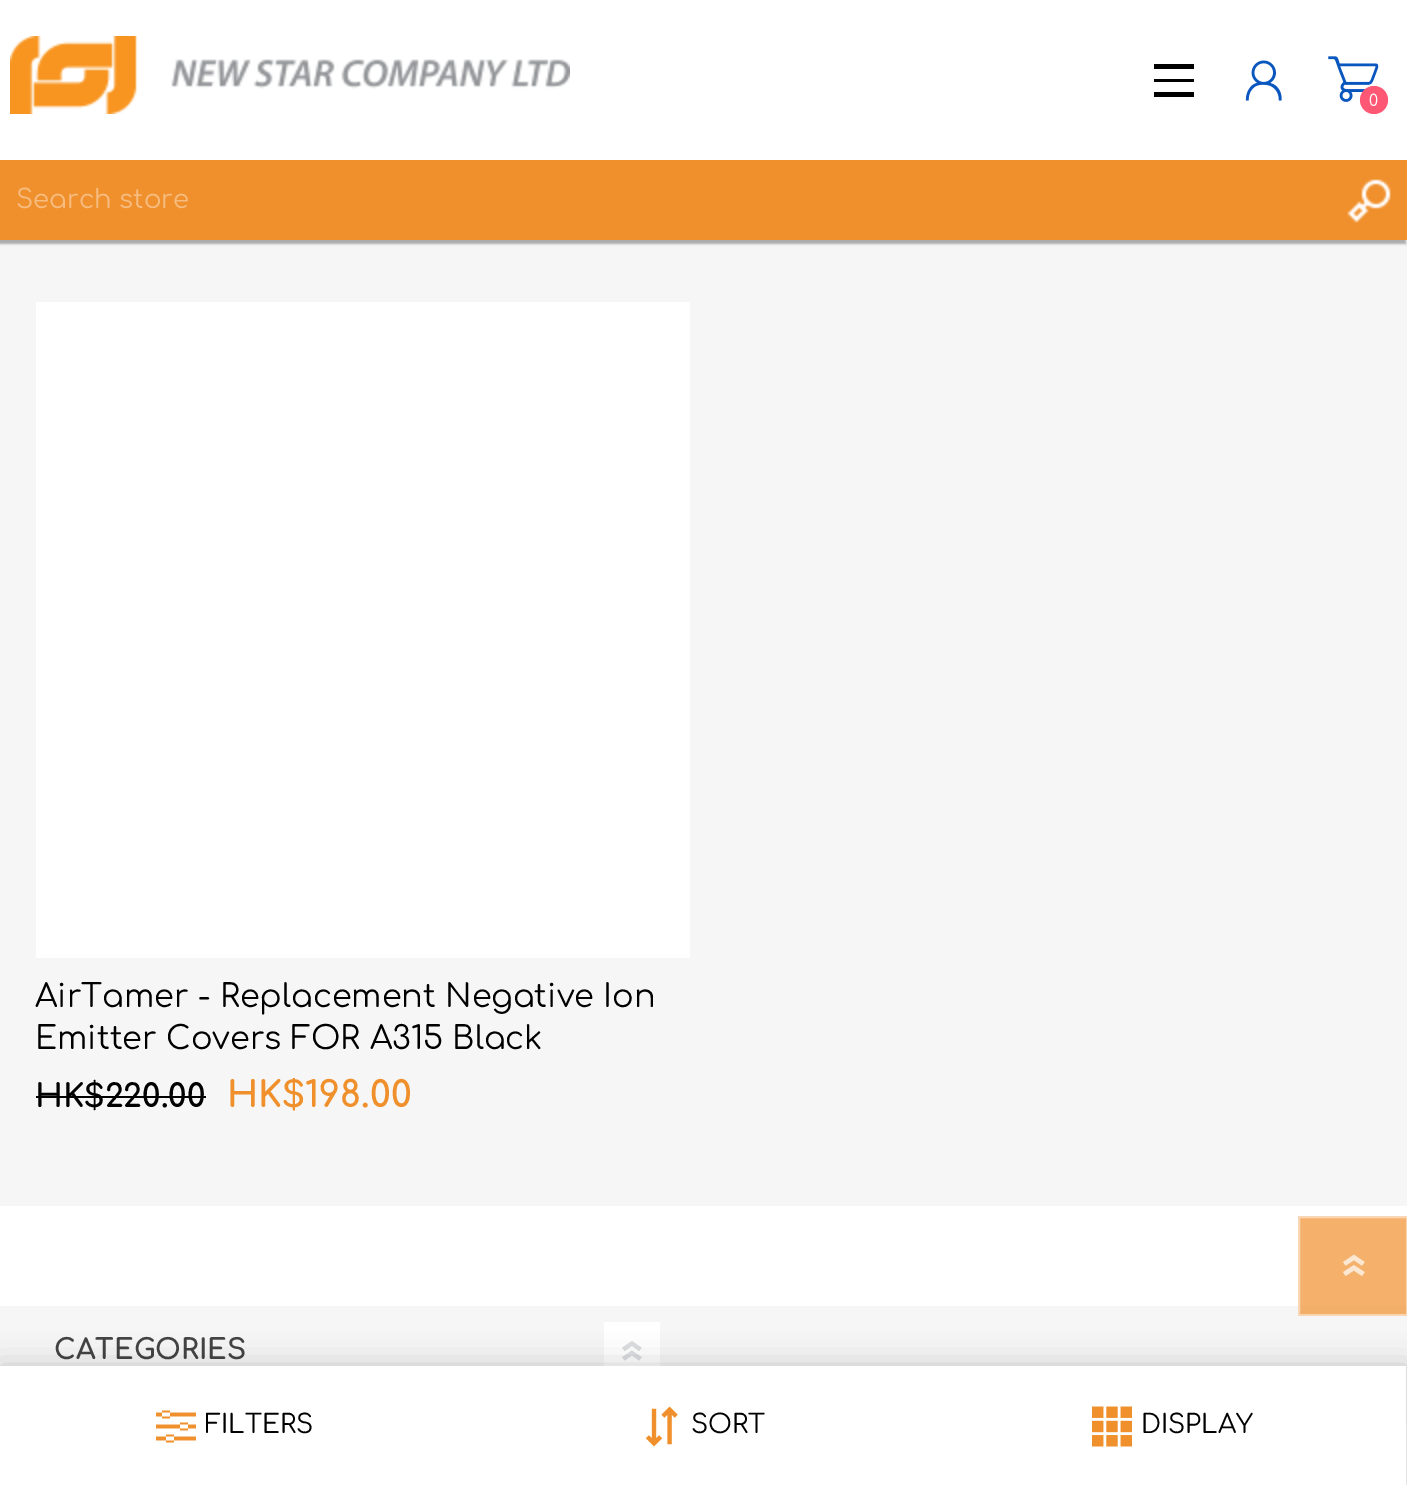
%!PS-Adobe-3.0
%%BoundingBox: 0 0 1407 1485
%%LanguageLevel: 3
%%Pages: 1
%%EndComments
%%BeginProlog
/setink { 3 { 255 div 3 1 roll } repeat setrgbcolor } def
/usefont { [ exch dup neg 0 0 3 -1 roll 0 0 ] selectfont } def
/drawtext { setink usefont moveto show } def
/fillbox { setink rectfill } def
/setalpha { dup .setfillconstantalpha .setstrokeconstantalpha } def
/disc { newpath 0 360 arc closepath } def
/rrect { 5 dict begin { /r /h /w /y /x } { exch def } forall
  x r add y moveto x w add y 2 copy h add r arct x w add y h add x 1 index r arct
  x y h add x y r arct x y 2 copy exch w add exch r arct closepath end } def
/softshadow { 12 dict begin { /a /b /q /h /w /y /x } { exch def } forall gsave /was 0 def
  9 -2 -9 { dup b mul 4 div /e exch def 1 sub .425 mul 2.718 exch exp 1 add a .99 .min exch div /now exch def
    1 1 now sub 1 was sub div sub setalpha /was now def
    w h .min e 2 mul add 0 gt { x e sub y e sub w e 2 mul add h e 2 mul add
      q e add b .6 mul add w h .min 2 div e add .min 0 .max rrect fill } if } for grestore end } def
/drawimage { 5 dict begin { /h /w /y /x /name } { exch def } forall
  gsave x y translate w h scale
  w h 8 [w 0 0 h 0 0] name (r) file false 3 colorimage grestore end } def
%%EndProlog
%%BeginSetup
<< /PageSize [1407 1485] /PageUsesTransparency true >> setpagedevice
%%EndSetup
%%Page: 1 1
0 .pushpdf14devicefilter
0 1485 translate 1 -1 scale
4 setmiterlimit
0 0 1407 1485 255 255 255 fillbox
1298 1216 109 90 245 177 107 fillbox
0 0 0 setink
1154 64 moveto 1154 69 lineto 1194 69 lineto 1194 64 lineto closepath 1154 82 moveto 1194 82 lineto 1194 79 lineto 1154 79 lineto closepath 1154 97 moveto 1194 97 lineto 1194 92 lineto 1154 92 lineto closepath fill
(assets/img1.rgb) 1245 60 37 41 drawimage
(assets/img2.rgb) 1328 56 51 46 drawimage
255 88 116 setink
1374 100 14 disc fill
(0) 1369 106 /Comfortaa-Regular 16 255 255 255 drawtext
(assets/img3.rgb) 10 36 560 78 drawimage
0 240 1407 966 246 246 246 fillbox
0 0 0 setink
-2 164 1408 80 0 1 0.3 softshadow
0 160 1407 80 240 144 44 fillbox
(Search store) 16 208 /Comfortaa-Regular 26 246 188 128 drawtext
(assets/img4.rgb) 1347 179 44 44 drawimage
36 302 654 656 255 255 255 fillbox
(AirTamer - Replacement Negative Ion) 35 1007 /Comfortaa-Regular 32 0 0 0 drawtext
(Emitter Covers FOR A315 Black) 35 1049 /Comfortaa-Regular 32 0 0 0 drawtext
(HK$220.00) 35 1107 /Comfortaa-Bold 32 0 0 0 drawtext
36 1096 170 2 0 0 0 fillbox
gsave
36 1078 654 68 rectclip
(HK$198.00) 227 1107 /Comfortaa-Bold 36 240 144 44 drawtext
grestore
0 1306 1407 118 246 246 246 fillbox
1298 1306 109 10 242 175 105 fillbox
(CATEGORIES) 54 1359 /Comfortaa-Bold 28 68 68 68 drawtext
604 1322 56 44 255 255 255 fillbox
(assets/img5.rgb) 622 1341 20 20 drawimage
0 0 0 setink
0 1366 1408 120 0 15 0.2 softshadow
0 1366 1406 119 255 255 255 fillbox
(assets/img6.rgb) 156 1410 40 33 drawimage
(FILTERS) 205 1433 /Comfortaa-Regular 26 0 0 0 drawtext
(assets/img7.rgb) 645 1406 33 41 drawimage
(SORT) 691 1433 /Comfortaa-Regular 26 0 0 0 drawtext
(assets/img8.rgb) 1092 1406 40 41 drawimage
(DISPLAY) 1141 1433 /Comfortaa-Regular 26 0 0 0 drawtext
0.49 setalpha
255 255 255 setink
2 setlinewidth
1299 1217 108 98 rectstroke
1 setalpha
(assets/img9.rgb) 1343 1254 22 22 drawimage
.poppdf14devicefilter showpage
%%EOF
